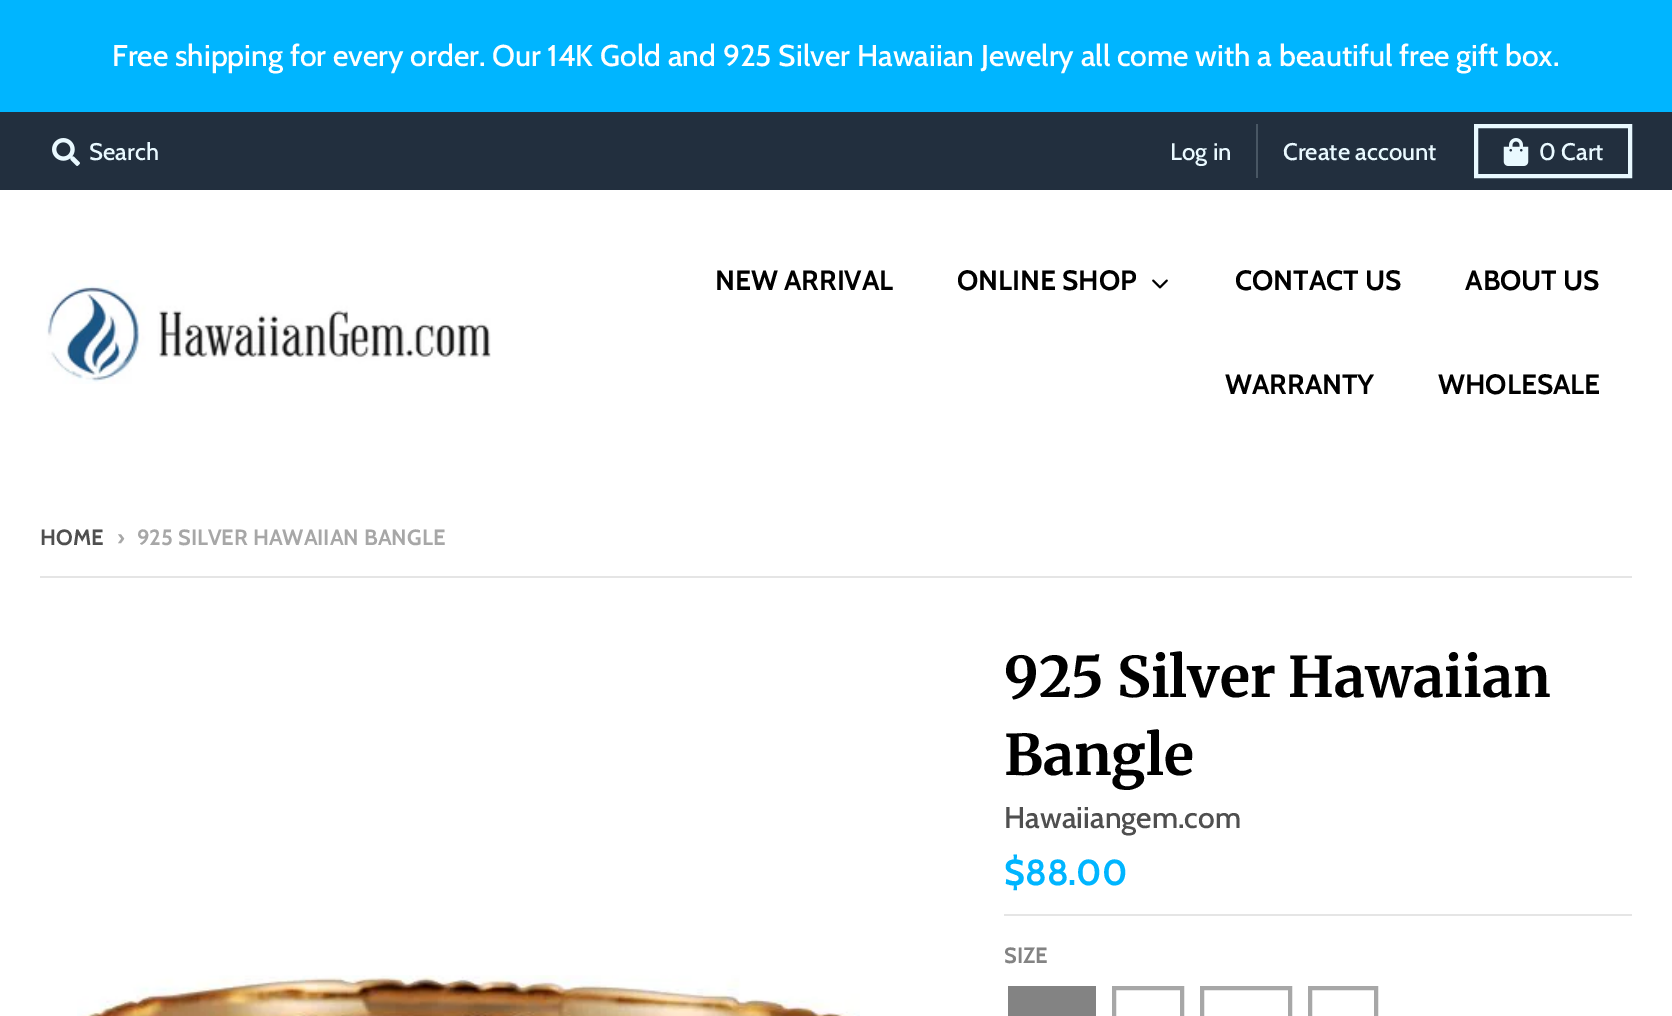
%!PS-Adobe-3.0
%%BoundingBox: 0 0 1672 1016
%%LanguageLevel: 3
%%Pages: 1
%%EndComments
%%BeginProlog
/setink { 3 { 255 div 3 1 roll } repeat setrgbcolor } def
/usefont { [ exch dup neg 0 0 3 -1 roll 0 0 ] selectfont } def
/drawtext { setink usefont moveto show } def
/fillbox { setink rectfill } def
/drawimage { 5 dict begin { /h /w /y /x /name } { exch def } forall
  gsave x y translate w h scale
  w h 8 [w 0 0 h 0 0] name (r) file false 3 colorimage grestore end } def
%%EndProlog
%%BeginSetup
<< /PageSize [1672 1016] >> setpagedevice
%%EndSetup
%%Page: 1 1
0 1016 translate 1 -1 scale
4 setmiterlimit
0 0 1672 1016 255 255 255 fillbox
0 0 1672 112 0 181 255 fillbox
(Free shipping for every order. Our 14K Gold and 925 Silver Hawaiian Jewelry all come with a beautiful free gift box.) 112 66 /Cabin-Medium 30 255 255 255 drawtext
0 112 1672 78 34 47 62 fillbox
(assets/img1.rgb) 52 138 28 28 drawimage
(Search) 89 160 /Cabin-Medium 24 233 249 255 drawtext
1256 124 2 54 73 87 100 fillbox
(Log in) 1170 160 /Cabin-Medium 24 233 249 255 drawtext
(Create account) 1283 160 /Cabin-Medium 24 233 249 255 drawtext
4 setlinewidth
1476 126 154 50 rectstroke
(assets/img2.rgb) 1503 138 26 28 drawimage
(0 Cart) 1539 160 /Cabin-Medium 24 233 249 255 drawtext
(assets/img3.rgb) 46 280 445 104 drawimage
(NEW ARRIVAL) 715 290 /Cabin-Bold 28 0 0 0 drawtext
(ONLINE SHOP) 957 290 /Cabin-Bold 28 0 0 0 drawtext
(assets/img4.rgb) 1152 279 16 10 drawimage
(CONTACT US) 1235 290 /Cabin-Bold 28 0 0 0 drawtext
(ABOUT US) 1465 290 /Cabin-Bold 28 0 0 0 drawtext
(WARRANTY) 1225 394 /Cabin-Bold 28 0 0 0 drawtext
(WHOLESALE) 1438 394 /Cabin-Bold 28 0 0 0 drawtext
(HOME) 40 545 /Cabin-Bold 22 79 79 79 drawtext
(›) 117 545 /Cabin-Bold 22 167 167 167 drawtext
(925 SILVER HAWAIIAN BANGLE) 137 545 /Cabin-Bold 22 167 167 167 drawtext
40 576 1592 2 229 229 229 fillbox
(925 Silver Hawaiian) 1004 697 /Merriweather-Bold 56 0 0 0 drawtext
(Bangle) 1004 775 /Merriweather-Bold 56 0 0 0 drawtext
(Hawaiiangem.com) 1004 828 /Cabin-Medium 30 79 79 79 drawtext
1004 914 628 2 229 229 229 fillbox
($88.00) 1004 885 /Cabin-Bold 36 0 181 255 drawtext
(SIZE) 1004 963 /Cabin-Bold 22 131 131 131 drawtext
1008 986 88 30 131 131 131 fillbox
167 167 167 setink
1114 988 68 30 rectstroke
1202 988 88 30 rectstroke
1310 988 66 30 rectstroke
(assets/img5.rgb) 77 975 783 41 drawimage
showpage
%%EOF
